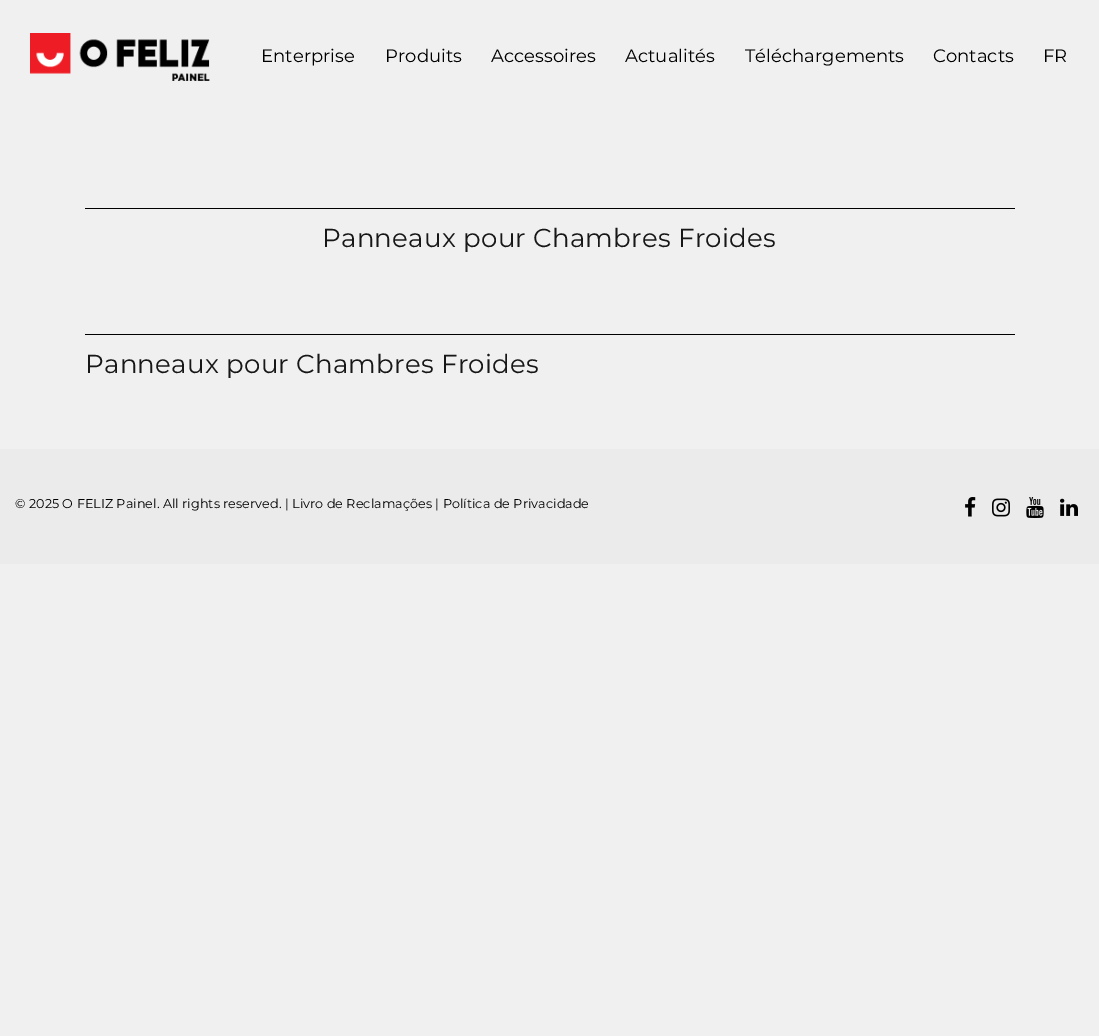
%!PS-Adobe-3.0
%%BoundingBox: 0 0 1099 1036
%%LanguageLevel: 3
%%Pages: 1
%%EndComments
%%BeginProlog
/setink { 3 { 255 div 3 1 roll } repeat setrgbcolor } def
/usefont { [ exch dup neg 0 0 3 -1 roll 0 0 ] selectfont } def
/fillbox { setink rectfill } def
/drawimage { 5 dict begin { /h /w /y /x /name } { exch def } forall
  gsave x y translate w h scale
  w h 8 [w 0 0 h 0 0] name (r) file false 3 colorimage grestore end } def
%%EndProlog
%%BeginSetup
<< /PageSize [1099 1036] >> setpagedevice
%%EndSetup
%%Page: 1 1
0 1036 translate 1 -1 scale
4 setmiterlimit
0 0 1099 1036 240 240 240 fillbox
(assets/img1.rgb) 30 33 180 48 drawimage
/Montserrat-Regular 18 usefont
0 0 0 setink
261 62 moveto 0.05 0 (Enterprise) ashow
385 62 moveto 0.05 0 (Produits) ashow
491 62 moveto 0.05 0 (Accessoires) ashow
625 62 moveto 0.05 0 (Actualités) ashow
745 62 moveto 0.05 0 (Téléchargements) ashow
933 62 moveto 0.05 0 (Contacts) ashow
1043 62 moveto 0.05 0 (FR) ashow
85 208 930 1 0 0 0 fillbox
/Montserrat-Regular 26 usefont
23 23 23 setink
322 247 moveto 0.3 0 (Panneaux pour Chambres Froides) ashow
85 334 930 1 0 0 0 fillbox
23 23 23 setink
85 373 moveto 0.3 0 (Panneaux pour Chambres Froides) ashow
0 449 1099 115 235 235 235 fillbox
/Montserrat-Regular 12.75 usefont
0 0 0 setink
15 508 moveto 0.05 0 (© 2025 O FELIZ Painel. All rights reserved. | Livro de Reclamações | Política de Privacidade) ashow
(assets/img2.rgb) 965 497 11 20 drawimage
(assets/img3.rgb) 992 498 18 19 drawimage
(assets/img4.rgb) 1026 497 18 21 drawimage
(assets/img5.rgb) 1060 498 18 18 drawimage
showpage
%%EOF
